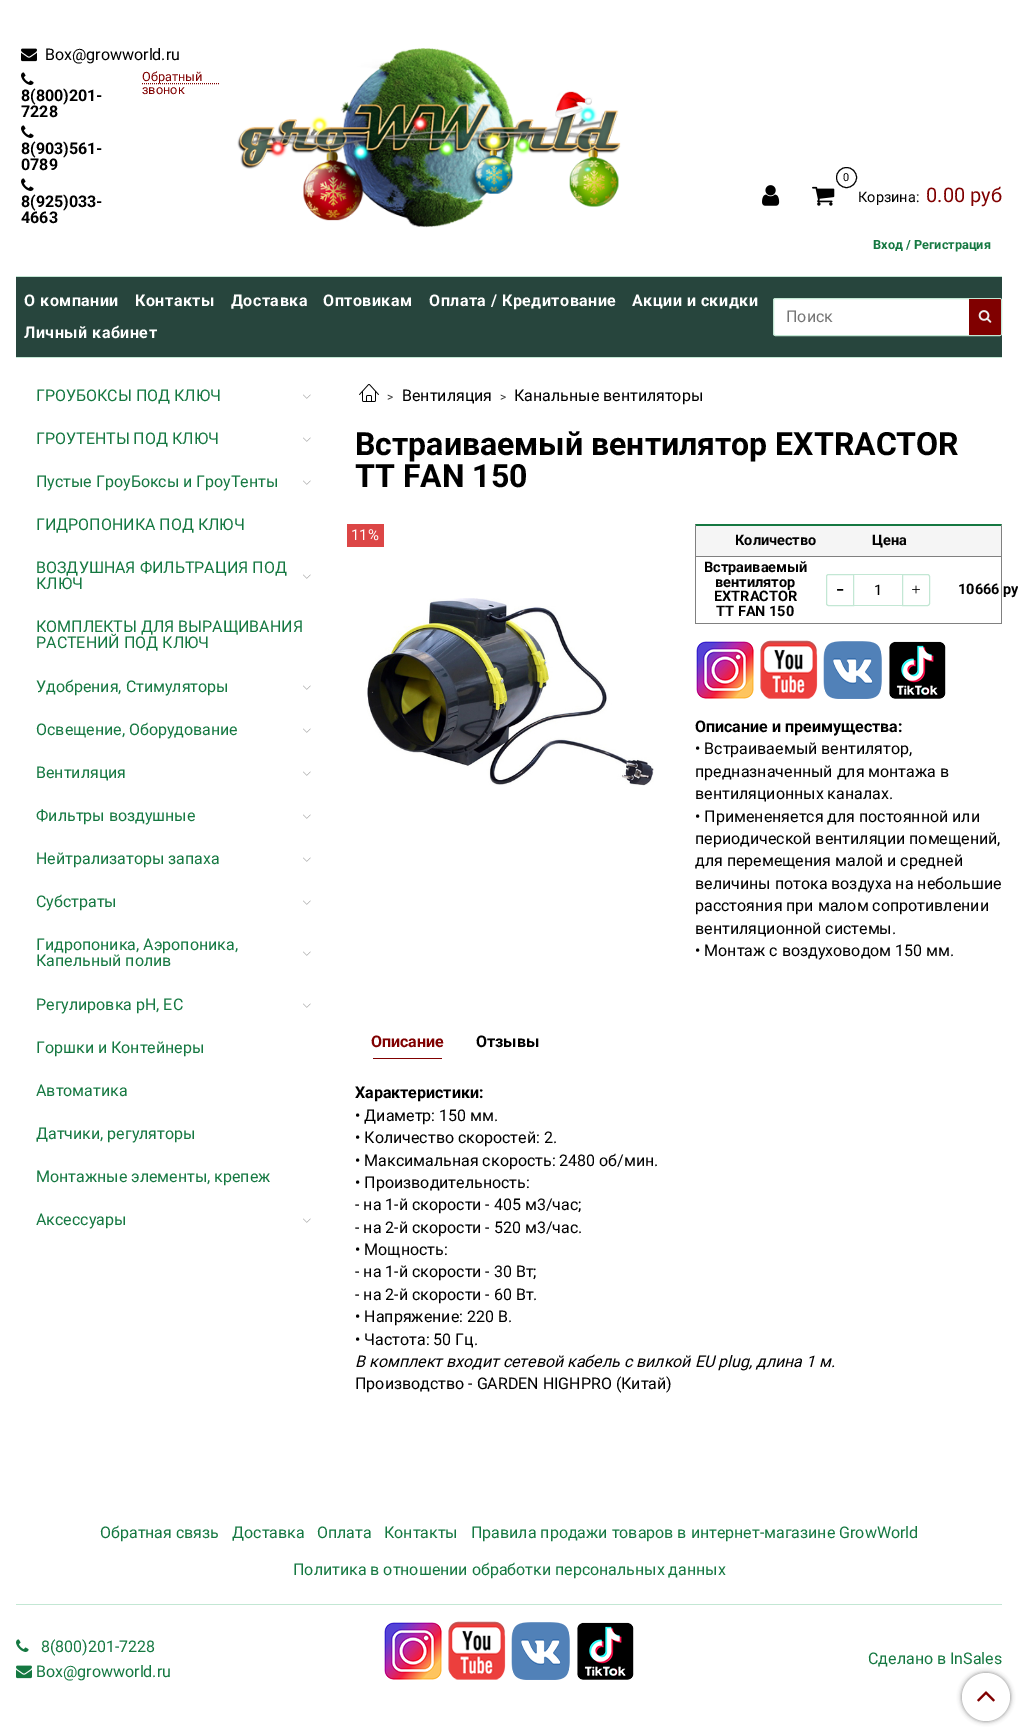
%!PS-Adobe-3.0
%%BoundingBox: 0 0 1018 1729
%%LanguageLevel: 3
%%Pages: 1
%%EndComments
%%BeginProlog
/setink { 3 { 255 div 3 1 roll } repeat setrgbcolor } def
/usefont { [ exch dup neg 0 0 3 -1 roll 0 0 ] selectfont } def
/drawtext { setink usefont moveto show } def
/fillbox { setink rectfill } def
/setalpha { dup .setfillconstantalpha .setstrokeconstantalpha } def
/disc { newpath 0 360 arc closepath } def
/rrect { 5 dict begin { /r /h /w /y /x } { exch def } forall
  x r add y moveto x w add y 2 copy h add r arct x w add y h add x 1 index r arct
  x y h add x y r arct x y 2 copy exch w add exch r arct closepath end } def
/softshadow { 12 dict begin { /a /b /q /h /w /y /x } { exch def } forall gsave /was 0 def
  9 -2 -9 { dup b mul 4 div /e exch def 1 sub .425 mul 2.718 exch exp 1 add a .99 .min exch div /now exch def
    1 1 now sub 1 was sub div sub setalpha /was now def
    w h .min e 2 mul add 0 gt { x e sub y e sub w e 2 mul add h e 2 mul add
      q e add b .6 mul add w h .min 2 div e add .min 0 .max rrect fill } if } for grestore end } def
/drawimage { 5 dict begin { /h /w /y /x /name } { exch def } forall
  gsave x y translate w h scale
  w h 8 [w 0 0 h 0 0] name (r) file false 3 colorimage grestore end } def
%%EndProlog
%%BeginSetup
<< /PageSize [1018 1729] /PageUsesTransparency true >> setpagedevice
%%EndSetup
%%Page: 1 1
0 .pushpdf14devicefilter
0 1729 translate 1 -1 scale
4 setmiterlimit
0 0 1018 1729 255 255 255 fillbox
(assets/img1.rgb) 21 48 16 14 drawimage
(Box@growworld.ru) 45 60 /Roboto-Regular 16 0 0 0 drawtext
128 0 0 setink
[1 1] 0 setdash
142 83.5 moveto 220 83.5 lineto stroke
(Обратный) 142 81 /Roboto-Regular 12.75 128 0 0 drawtext
(звонок) 142 94 /Roboto-Regular 12.75 128 0 0 drawtext
(assets/img2.rgb) 21 72 13 13 drawimage
(8\(800\)201-) 21 101 /Roboto-Bold 16 0 0 0 drawtext
(7228) 21 117 /Roboto-Bold 16 0 0 0 drawtext
(assets/img2.rgb) 21 125 13 13 drawimage
(8\(903\)561-) 21 154 /Roboto-Bold 16 0 0 0 drawtext
(0789) 21 170 /Roboto-Bold 16 0 0 0 drawtext
(assets/img2.rgb) 21 178 13 13 drawimage
(8\(925\)033-) 21 207 /Roboto-Bold 16 0 0 0 drawtext
(4663) 21 223 /Roboto-Bold 16 0 0 0 drawtext
(assets/img3.rgb) 237 48 384 180 drawimage
(assets/img4.rgb) 762 185 18 21 drawimage
[] 0 setdash
846.5 177.5 10 disc stroke
(0) 843 181 /Roboto-Regular 11 0 0 0 drawtext
(assets/img5.rgb) 812 186 23 20 drawimage
(Корзина:) 858 202 /Roboto-Regular 14.5 0 0 0 drawtext
(0.00 руб) 926 202 /Roboto-Regular 20 128 0 0 drawtext
(Вход / Регистрация) 873 249 /Roboto-Bold 12.75 21 120 65 drawtext
16 277 986 80 39 69 61 fillbox
16 276 986 1 195 231 212 fillbox
16 357 986 1 195 231 212 fillbox
/Roboto-Bold 16 usefont
255 255 255 setink
24 306 moveto 0.5 0 (О компании) ashow
135 306 moveto 0.5 0 (Контакты) ashow
231 306 moveto 0.5 0 (Доставка) ashow
323 306 moveto 0.5 0 (Оптовикам) ashow
429 306 moveto 0.5 0 (Оплата / Кредитование) ashow
632 306 moveto 0.5 0 (Акции и скидки) ashow
24 338 moveto 0.5 0 (Личный кабинет) ashow
773.5 298.5 228 37 2 rrect gsave fill grestore
195 231 212 setink
stroke
(Поиск) 786 322 /Roboto-Regular 16 117 117 117 drawtext
128 0 0 setink
969 299 moveto 999.5 299 lineto 1000.5 299 1001 299.5 1001 300.5 curveto 1001 333.5 lineto 1001 334.5 1000.5 335 999.5 335 curveto 969 335 lineto closepath fill
(assets/img6.rgb) 978 310 14 13 drawimage
(ГРОУБОКСЫ ПОД КЛЮЧ) 36 401 /Roboto-Regular 16 21 120 65 drawtext
(assets/img7.rgb) 303 394 8 5 drawimage
(ГРОУТЕНТЫ ПОД КЛЮЧ) 36 444 /Roboto-Regular 16 21 120 65 drawtext
(assets/img7.rgb) 303 437 8 5 drawimage
(Пустые ГроуБоксы и ГроуТенты) 36 487 /Roboto-Regular 16 21 120 65 drawtext
(assets/img7.rgb) 303 480 8 5 drawimage
(ГИДРОПОНИКА ПОД КЛЮЧ) 36 530 /Roboto-Regular 16 21 120 65 drawtext
(ВОЗДУШНАЯ ФИЛЬТРАЦИЯ ПОД) 36 573 /Roboto-Regular 16 21 120 65 drawtext
(КЛЮЧ) 36 589 /Roboto-Regular 16 21 120 65 drawtext
(assets/img7.rgb) 303 574 8 5 drawimage
(КОМПЛЕКТЫ ДЛЯ ВЫРАЩИВАНИЯ) 36 632 /Roboto-Regular 16 21 120 65 drawtext
(РАСТЕНИЙ ПОД КЛЮЧ) 36 648 /Roboto-Regular 16 21 120 65 drawtext
(Удобрения, Стимуляторы) 36 692 /Roboto-Regular 16 21 120 65 drawtext
(assets/img7.rgb) 303 685 8 5 drawimage
(Освещение, Оборудование) 36 735 /Roboto-Regular 16 21 120 65 drawtext
(assets/img7.rgb) 303 728 8 5 drawimage
(Вентиляция) 36 778 /Roboto-Regular 16 21 120 65 drawtext
(assets/img7.rgb) 303 771 8 5 drawimage
(Фильтры воздушные) 36 821 /Roboto-Regular 16 21 120 65 drawtext
(assets/img7.rgb) 303 814 8 5 drawimage
(Нейтрализаторы запаха) 36 864 /Roboto-Regular 16 21 120 65 drawtext
(assets/img7.rgb) 303 857 8 5 drawimage
(Субстраты) 36 907 /Roboto-Regular 16 21 120 65 drawtext
(assets/img7.rgb) 303 900 8 5 drawimage
(Гидропоника, Аэропоника,) 36 950 /Roboto-Regular 16 21 120 65 drawtext
(Капельный полив) 36 966 /Roboto-Regular 16 21 120 65 drawtext
(assets/img7.rgb) 303 951 8 5 drawimage
(Регулировка pH, EC) 36 1010 /Roboto-Regular 16 21 120 65 drawtext
(assets/img7.rgb) 303 1003 8 5 drawimage
(Горшки и Контейнеры) 36 1053 /Roboto-Regular 16 21 120 65 drawtext
(Автоматика) 36 1096 /Roboto-Regular 16 21 120 65 drawtext
(Датчики, регуляторы) 36 1139 /Roboto-Regular 16 21 120 65 drawtext
(Монтажные элементы, крепеж) 36 1182 /Roboto-Regular 16 21 120 65 drawtext
(Аксессуары) 36 1225 /Roboto-Regular 16 21 120 65 drawtext
(assets/img7.rgb) 303 1218 8 5 drawimage
(assets/img8.rgb) 359 384 20 18 drawimage
(>) 387 401 /Roboto-Regular 12 51 51 51 drawtext
(Вентиляция) 402 401 /Roboto-Regular 16 0 0 0 drawtext
(>) 500 401 /Roboto-Regular 12 51 51 51 drawtext
(Канальные вентиляторы) 514 401 /Roboto-Regular 16 0 0 0 drawtext
(Встраиваемый вентилятор EXTRACTOR) 355 455 /Roboto-Bold 32 0 0 0 drawtext
(TT FAN 150) 355 487 /Roboto-Bold 32 0 0 0 drawtext
347 524 37 23 220 70 70 fillbox
(11%) 351 540 /Roboto-Regular 15 255 255 255 drawtext
(assets/img9.rgb) 367 598 287 188 drawimage
21 120 65 setink
695 524 moveto 1002 524 lineto 1001 526 lineto 696 526 lineto closepath fill
128 128 128 setink
1002 524 moveto 1002 624 lineto 1001 623 lineto 1001 526 lineto closepath fill
695 623 307 1 128 128 128 fillbox
695 624 moveto 695 524 lineto 696 526 lineto 696 623 lineto closepath fill
696 526 305 30 245 245 245 fillbox
696 556 305 1 128 128 128 fillbox
(Количество) 735 545 /Roboto-Bold 14.5 0 0 0 drawtext
(Цена) 872 545 /Roboto-Bold 14.5 0 0 0 drawtext
(Встраиваемый) 704 572 /Roboto-Bold 14.5 0 0 0 drawtext
(вентилятор) 715 587 /Roboto-Bold 14.5 0 0 0 drawtext
(EXTRACTOR) 714 601 /Roboto-Bold 14.5 0 0 0 drawtext
(TT FAN 150) 716 616 /Roboto-Bold 14.5 0 0 0 drawtext
195 231 212 setink
828.5 574.5 moveto 853.5 574.5 lineto 853.5 605.5 lineto 828.5 605.5 lineto 827.5 605.5 826.5 604.5 826.5 603.5 curveto 826.5 576.5 lineto 826.5 575.5 827.5 574.5 828.5 574.5 curveto closepath stroke
(assets/img10.rgb) 837 589 7 2 drawimage
854 574 48 1 195 231 212 fillbox
854 605 48 1 195 231 212 fillbox
(1) 874 595 /Roboto-Regular 14.5 0 0 0 drawtext
195 231 212 setink
902.5 574.5 moveto 927.5 574.5 lineto 928.5 574.5 929.5 575.5 929.5 576.5 curveto 929.5 603.5 lineto 929.5 604.5 928.5 605.5 927.5 605.5 curveto 902.5 605.5 lineto closepath stroke
(assets/img11.rgb) 912 585 8 9 drawimage
(10666 ру) 958 594 /Roboto-Bold 14.5 0 0 0 drawtext
(assets/img12.rgb) 696 641 58 58 drawimage
(assets/img13.rgb) 760 640 58 59 drawimage
(assets/img14.rgb) 823 641 59 58 drawimage
(assets/img15.rgb) 889 641 57 58 drawimage
(Описание и преимущества:) 695 732 /Roboto-Bold 16 0 0 0 drawtext
(• Встраиваемый вентилятор,) 695 754 /Roboto-Regular 16 0 0 0 drawtext
(предназначенный для монтажа в) 695 777 /Roboto-Regular 16 0 0 0 drawtext
(вентиляционных каналах.) 695 799 /Roboto-Regular 16 0 0 0 drawtext
(• Примененяется для постоянной или) 695 822 /Roboto-Regular 16 0 0 0 drawtext
(периодической вентиляции помещений,) 695 844 /Roboto-Regular 16 0 0 0 drawtext
(для перемещения малой и средней) 695 866 /Roboto-Regular 16 0 0 0 drawtext
(величины потока воздуха на небольшие) 695 889 /Roboto-Regular 16 0 0 0 drawtext
(расстояния при малом сопротивлении) 695 911 /Roboto-Regular 16 0 0 0 drawtext
(вентиляционной системы.) 695 934 /Roboto-Regular 16 0 0 0 drawtext
(• Монтаж с воздуховодом 150 мм.) 695 956 /Roboto-Regular 16 0 0 0 drawtext
(Описание) 371 1047 /Roboto-Bold 16 128 0 0 drawtext
373 1058 69 1 128 0 0 fillbox
(Отзывы) 476 1047 /Roboto-Bold 16 0 0 0 drawtext
(Характеристики:) 355 1098 /Roboto-Bold 16 0 0 0 drawtext
(• Диаметр: 150 мм.) 355 1121 /Roboto-Regular 16 0 0 0 drawtext
(• Количество скоростей: 2.) 355 1143 /Roboto-Regular 16 0 0 0 drawtext
(• Максимальная скорость: 2480 об/мин.) 355 1166 /Roboto-Regular 16 0 0 0 drawtext
(• Производительность:) 355 1188 /Roboto-Regular 16 0 0 0 drawtext
(- на 1-й скорости - 405 м3/час;) 355 1210 /Roboto-Regular 16 0 0 0 drawtext
(- на 2-й скорости - 520 м3/час.) 355 1233 /Roboto-Regular 16 0 0 0 drawtext
(• Мощность:) 355 1255 /Roboto-Regular 16 0 0 0 drawtext
(- на 1-й скорости - 30 Вт;) 355 1277 /Roboto-Regular 16 0 0 0 drawtext
(- на 2-й скорости - 60 Вт.) 355 1300 /Roboto-Regular 16 0 0 0 drawtext
(• Напряжение: 220 В.) 355 1322 /Roboto-Regular 16 0 0 0 drawtext
(• Частота: 50 Гц.) 355 1345 /Roboto-Regular 16 0 0 0 drawtext
(В комплект входит сетевой кабель с вилкой EU plug, длина 1 м.) 355 1367 /Roboto-Italic 16 0 0 0 drawtext
(Производство - GARDEN HIGHPRO \(Китай\)) 355 1389 /Roboto-Regular 16 0 0 0 drawtext
16 1604 986 1 195 231 212 fillbox
(Обратная связь) 100 1538 /Roboto-Regular 16 21 120 65 drawtext
(Доставка) 232 1538 /Roboto-Regular 16 21 120 65 drawtext
(Оплата) 317 1538 /Roboto-Regular 16 21 120 65 drawtext
(Контакты) 384 1538 /Roboto-Regular 16 21 120 65 drawtext
(Правила продажи товаров в интернет-магазине GrowWorld) 471 1538 /Roboto-Regular 16 21 120 65 drawtext
(Политика в отношении обработки персональных данных) 293 1575 /Roboto-Regular 16 21 120 65 drawtext
(assets/img16.rgb) 16 1639 13 13 drawimage
(8\(800\)201-7228) 41 1652 /Roboto-Regular 16 21 120 65 drawtext
(assets/img17.rgb) 16 1665 16 14 drawimage
(Box@growworld.ru) 36 1677 /Roboto-Regular 16 21 120 65 drawtext
(assets/img12.rgb) 384 1622 58 58 drawimage
(assets/img13.rgb) 448 1621 58 59 drawimage
(assets/img14.rgb) 511 1622 59 58 drawimage
(assets/img15.rgb) 577 1622 57 58 drawimage
(Сделано в InSales) 868 1664 /Roboto-Regular 16 21 120 65 drawtext
119 119 119 setink
962 1673 48 48 24 2.5 1 softshadow
255 255 255 setink
986 1697 24 disc fill
(assets/img18.rgb) 977 1691 18 11 drawimage
.poppdf14devicefilter showpage
%%EOF
